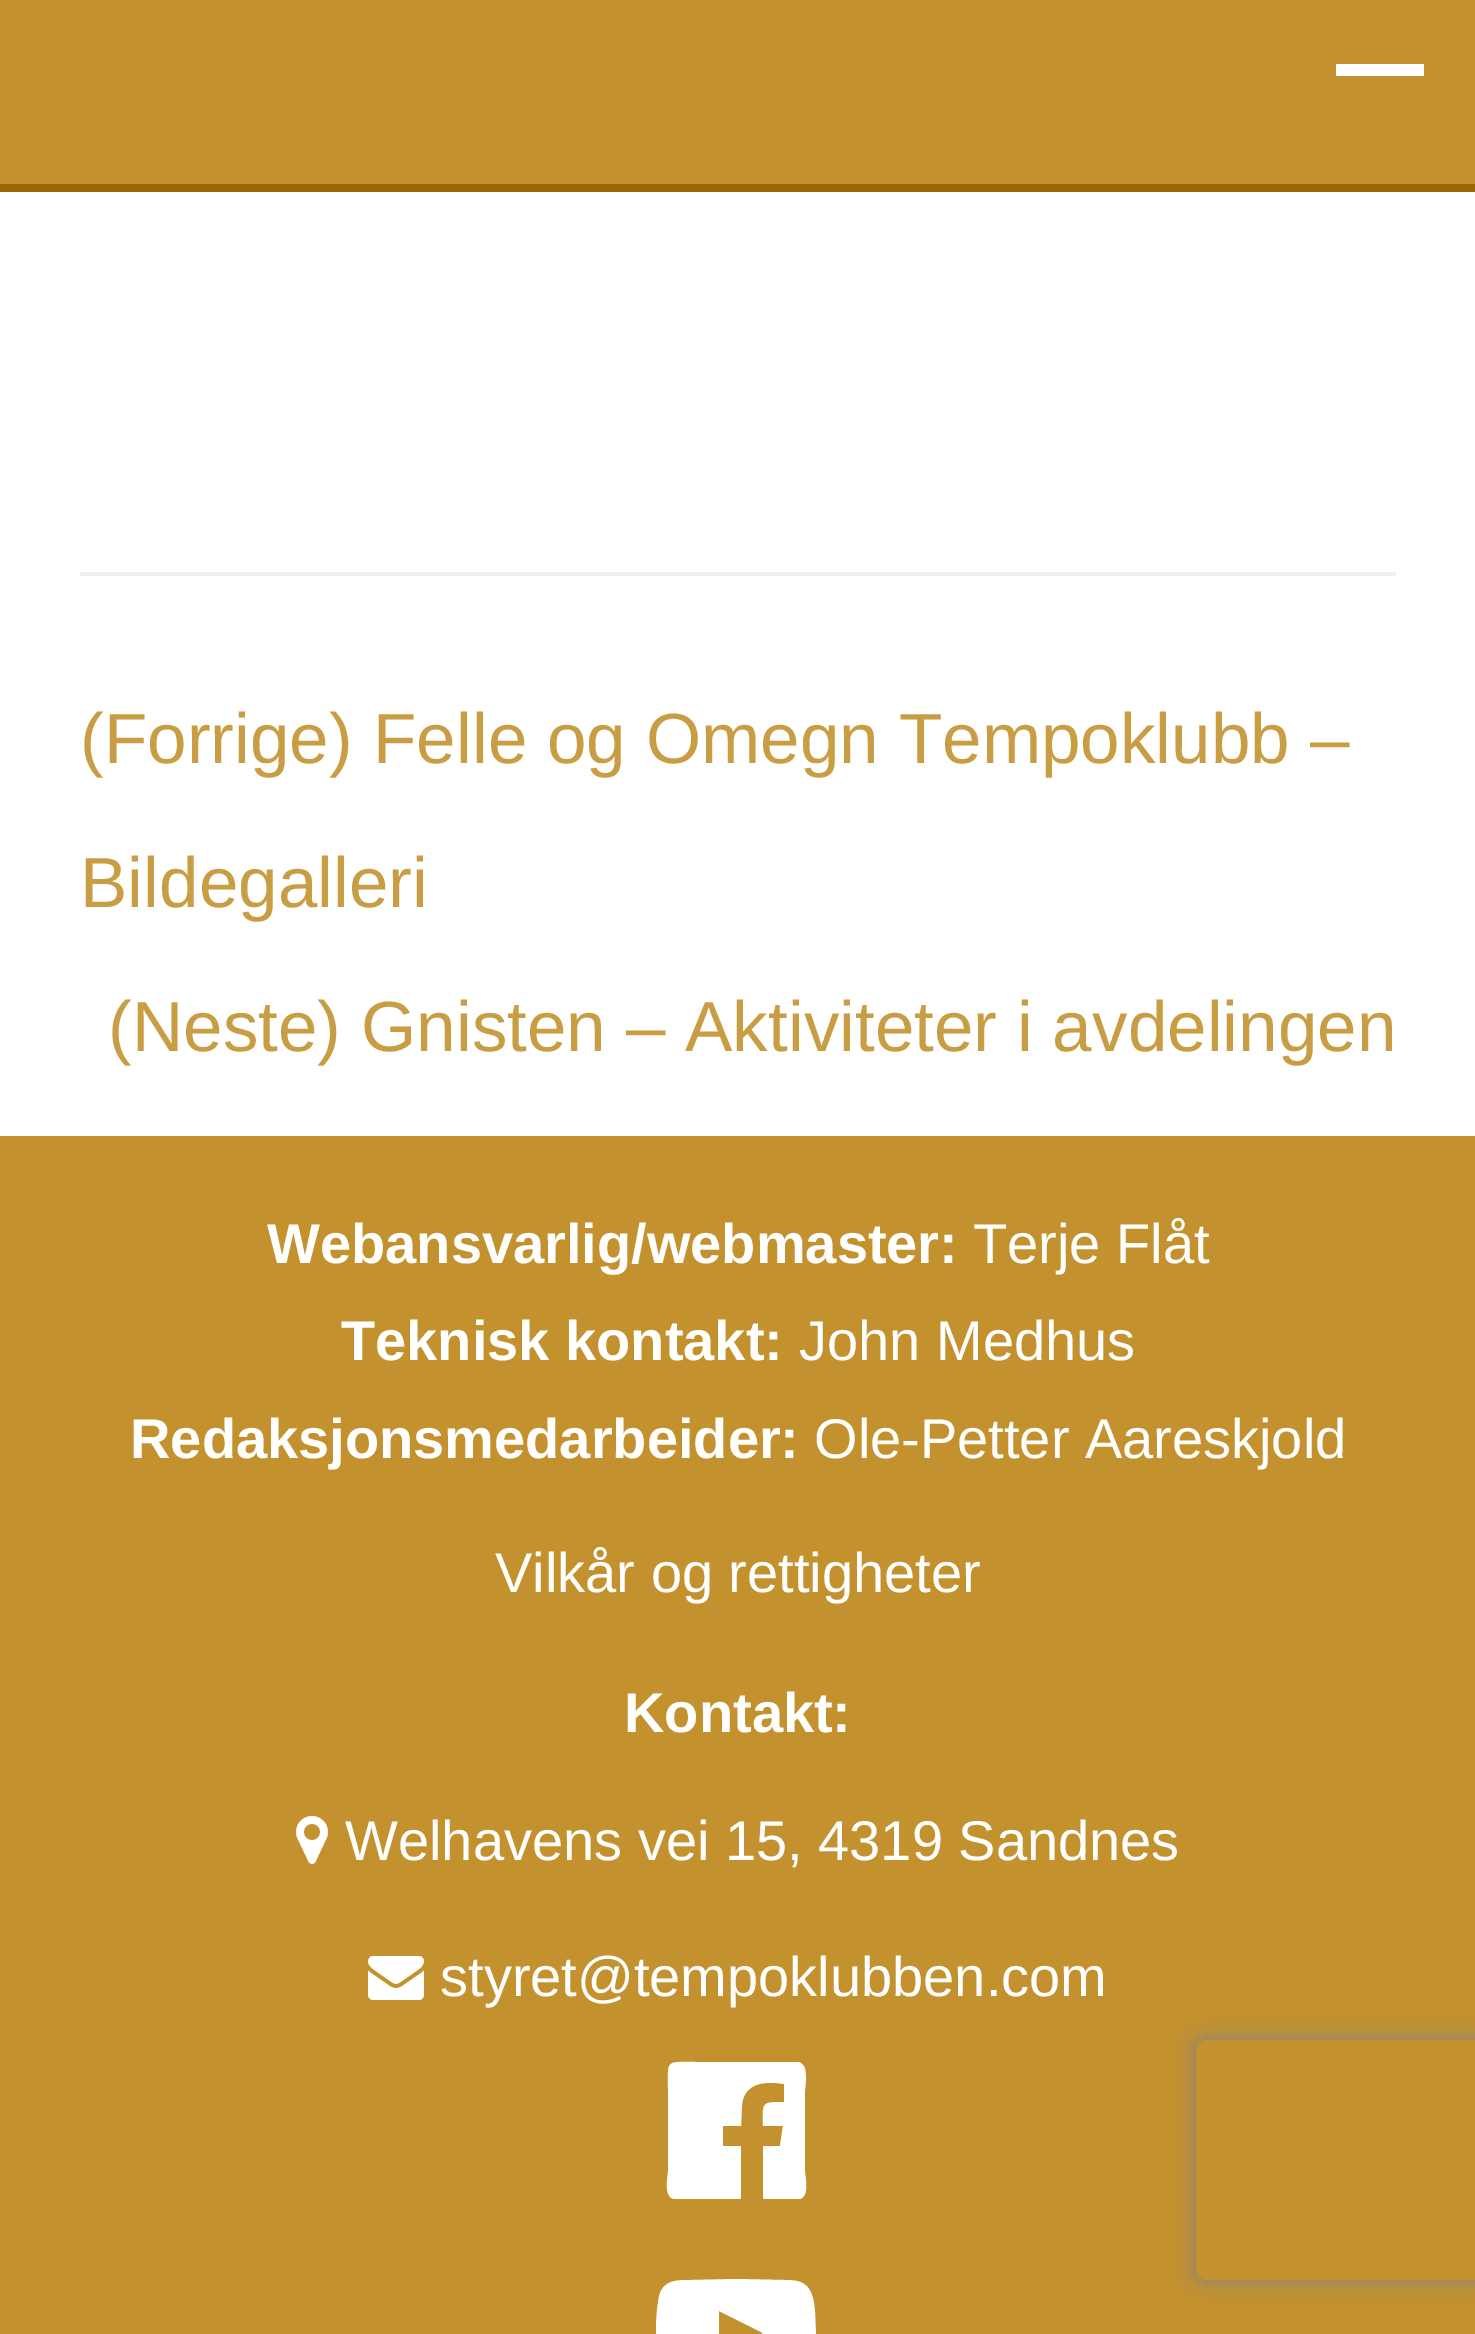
%!PS-Adobe-3.0
%%BoundingBox: 0 0 1475 2334
%%LanguageLevel: 3
%%Pages: 1
%%EndComments
%%BeginProlog
/setink { 3 { 255 div 3 1 roll } repeat setrgbcolor } def
/usefont { [ exch dup neg 0 0 3 -1 roll 0 0 ] selectfont } def
/drawtext { setink usefont moveto show } def
/fillbox { setink rectfill } def
/setalpha { dup .setfillconstantalpha .setstrokeconstantalpha } def
/rrect { 5 dict begin { /r /h /w /y /x } { exch def } forall
  x r add y moveto x w add y 2 copy h add r arct x w add y h add x 1 index r arct
  x y h add x y r arct x y 2 copy exch w add exch r arct closepath end } def
/softshadow { 12 dict begin { /a /b /q /h /w /y /x } { exch def } forall gsave /was 0 def
  9 -2 -9 { dup b mul 4 div /e exch def 1 sub .425 mul 2.718 exch exp 1 add a .99 .min exch div /now exch def
    1 1 now sub 1 was sub div sub setalpha /was now def
    w h .min e 2 mul add 0 gt { x e sub y e sub w e 2 mul add h e 2 mul add
      q e add b .6 mul add w h .min 2 div e add .min 0 .max rrect fill } if } for grestore end } def
/drawimage { 5 dict begin { /h /w /y /x /name } { exch def } forall
  gsave x y translate w h scale
  w h 8 [w 0 0 h 0 0] name (r) file false 3 colorimage grestore end } def
%%EndProlog
%%BeginSetup
<< /PageSize [1475 2334] /PageUsesTransparency true >> setpagedevice
%%EndSetup
%%Page: 1 1
0 .pushpdf14devicefilter
0 2334 translate 1 -1 scale
4 setmiterlimit
0 0 1475 2334 255 255 255 fillbox
0 0 1475 184 195 146 46 fillbox
0 184 1475 8 152 103 3 fillbox
1336 64 88 12 255 255 255 fillbox
80 572 1316 4 240 240 240 fillbox
(\(Forrige\)) 80 763 /LiberationSans-Regular 71.1 201 157 67 drawtext
(Felle og Omegn Tempoklubb –) 373 763 /LiberationSans-Regular 71.1 201 157 67 drawtext
(Bildegalleri) 80 907 /LiberationSans-Regular 71.1 201 157 67 drawtext
(\(Neste\)) 108 1051 /LiberationSans-Regular 71.1 201 157 67 drawtext
(Gnisten – Aktiviteter i avdelingen) 361 1051 /LiberationSans-Regular 71.1 201 157 67 drawtext
0 1136 1475 1198 195 146 46 fillbox
(Webansvarlig/webmaster:) 267 1263 /LiberationSans-Bold 56 255 255 255 drawtext
(Terje Flåt) 973 1263 /LiberationSans-Regular 56 255 255 255 drawtext
(Teknisk kontakt:) 341 1360 /LiberationSans-Bold 56 255 255 255 drawtext
(John Medhus) 799 1360 /LiberationSans-Regular 56 255 255 255 drawtext
(Redaksjonsmedarbeider:) 130 1458 /LiberationSans-Bold 56 255 255 255 drawtext
(Ole-Petter Aareskjold) 814 1458 /LiberationSans-Regular 56 255 255 255 drawtext
(Vilkår og rettigheter) 495 1592 /LiberationSans-Regular 56 255 255 255 drawtext
(Kontakt:) 624 1732 /LiberationSans-Bold 56 255 255 255 drawtext
(assets/img1.rgb) 296 1816 32 48 drawimage
(Welhavens vei 15, 4319 Sandnes) 345 1860 /LiberationSans-Regular 56 255 255 255 drawtext
(assets/img2.rgb) 368 1956 56 44 drawimage
(styret@tempoklubben.com) 440 1996 /LiberationSans-Regular 56 255 255 255 drawtext
798 2062 moveto 800 2062 801 2063 803 2065 curveto 808 2070 805 2089 805 2090 curveto 805 2172 lineto 805 2175 810 2196 800 2199 curveto 763 2199 lineto 763 2146 lineto 780 2146 lineto 783 2126 lineto 763 2126 lineto 763 2103 760 2102 784 2102 curveto 784 2084 lineto 766 2081 745 2082 742 2104 curveto 741 2126 lineto 723 2126 lineto 723 2146 lineto 741 2146 lineto 741 2199 lineto 674 2199 lineto 663 2197 668 2175 668 2172 curveto 668 2090 lineto 668 2059 665 2062 696 2062 curveto closepath fill
719 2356 moveto 763 2333 lineto 719 2311 lineto closepath 736 2279 moveto 784 2280 lineto 789 2280 795 2280 800 2282 curveto 812 2286 814 2300 815 2312 curveto 816 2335 lineto 816 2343 816 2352 815 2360 curveto 814 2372 812 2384 799 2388 curveto 793 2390 786 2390 780 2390 curveto 757 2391 734 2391 711 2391 curveto 663 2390 656 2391 656 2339 curveto 656 2327 656 2315 658 2303 curveto 660 2280 674 2280 692 2280 curveto closepath fill
gsave
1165 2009 moveto 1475 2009 lineto 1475 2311 lineto 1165 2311 lineto closepath 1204 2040 moveto 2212 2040 lineto 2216.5 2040 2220 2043.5 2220 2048 curveto 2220 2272 lineto 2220 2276.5 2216.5 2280 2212 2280 curveto 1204 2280 lineto 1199.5 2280 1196 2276.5 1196 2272 curveto 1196 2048 lineto 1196 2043.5 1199.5 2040 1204 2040 curveto closepath eoclip newpath
128 128 128 setink
1196 2040 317 240 8 10 1 softshadow
grestore
.poppdf14devicefilter showpage
%%EOF
